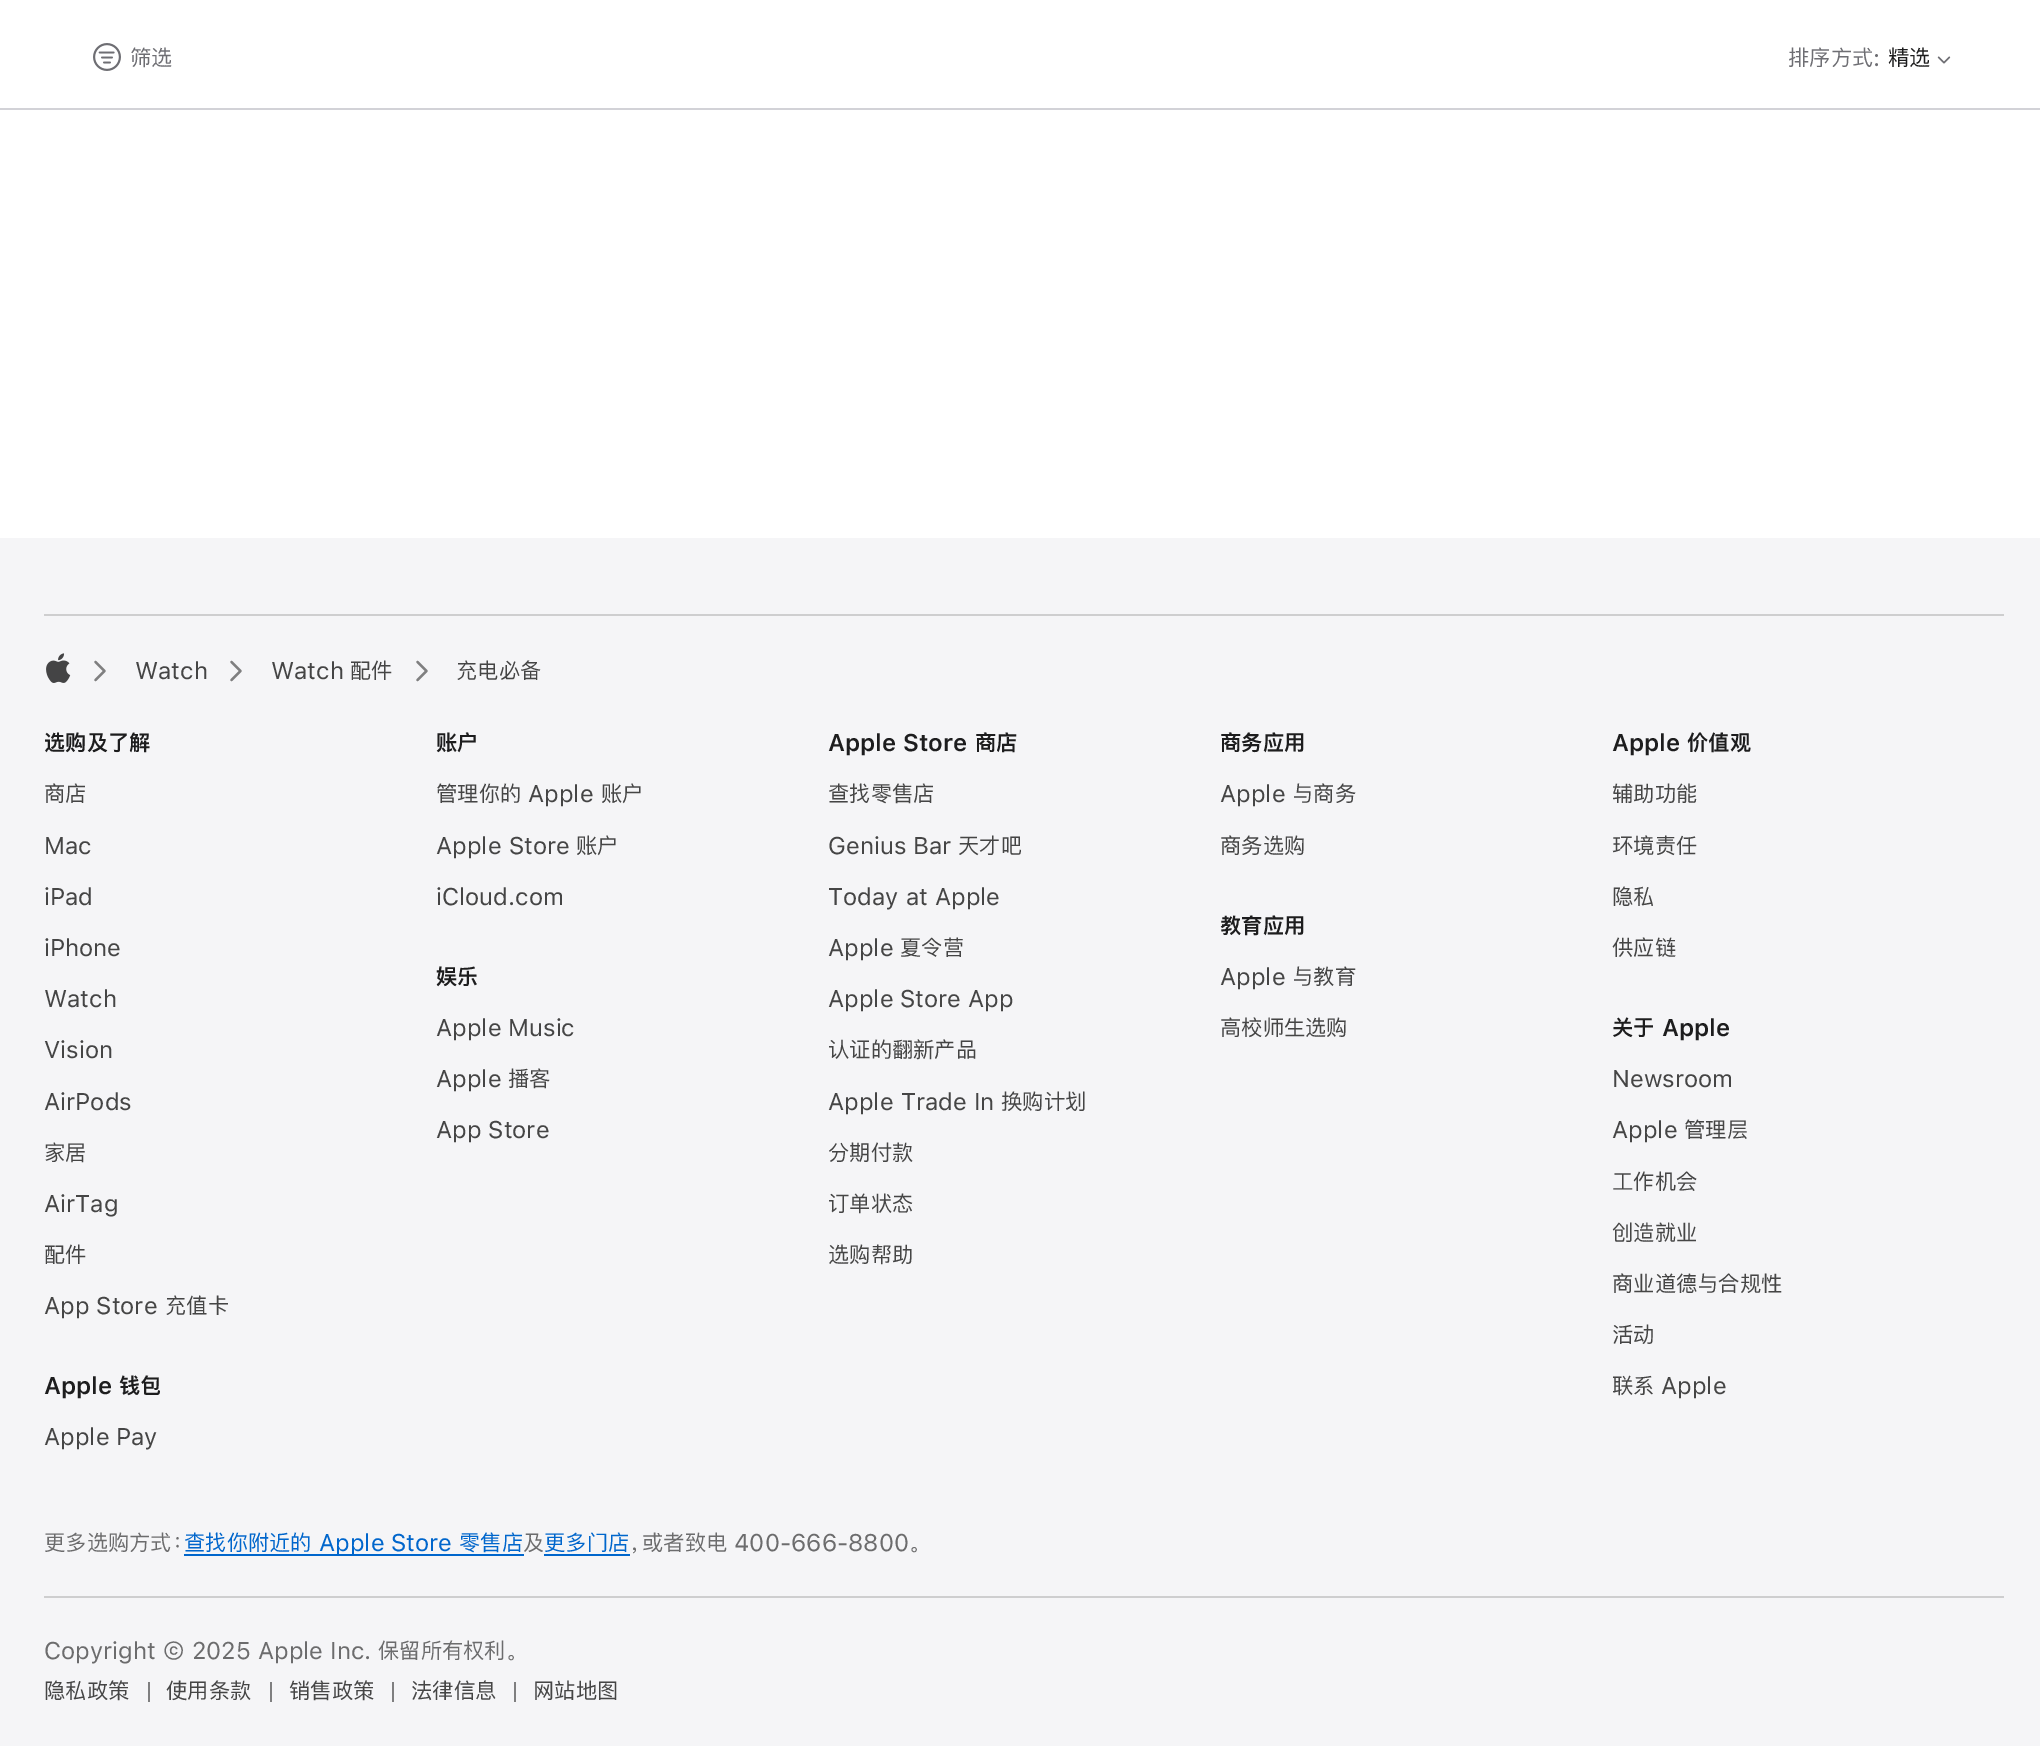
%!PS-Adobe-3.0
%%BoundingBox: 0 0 2040 1748
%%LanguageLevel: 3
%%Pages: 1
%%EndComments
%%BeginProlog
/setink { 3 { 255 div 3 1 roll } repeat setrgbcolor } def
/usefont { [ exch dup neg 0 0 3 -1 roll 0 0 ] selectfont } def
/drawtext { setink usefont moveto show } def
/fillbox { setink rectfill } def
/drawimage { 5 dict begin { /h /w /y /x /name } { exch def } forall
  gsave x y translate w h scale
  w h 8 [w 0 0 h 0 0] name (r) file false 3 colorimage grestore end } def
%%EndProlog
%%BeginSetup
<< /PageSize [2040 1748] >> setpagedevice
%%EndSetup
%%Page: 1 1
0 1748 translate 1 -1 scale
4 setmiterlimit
0 0 2040 1748 255 255 255 fillbox
(assets/img1.rgb) 93 43 28 28 drawimage
(筛选) 130 66 /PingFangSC-Regular 24 110 110 115 drawtext
(排序方式) 1788 66 /PingFangSC-Regular 24 110 110 115 drawtext
(:) 1873 66 /SFProText-Regular 24 110 110 115 drawtext
(精选) 1888 66 /PingFangSC-Regular 24 29 29 30 drawtext
(assets/img2.rgb) 1937 56 14 8 drawimage
0 108 2040 2 210 210 215 fillbox
0 538 2040 1208 245 245 247 fillbox
44 614 1960 2 206 206 207 fillbox
(assets/img3.rgb) 46 653 25 30 drawimage
127 127 128 setink
2.2 setlinewidth
1 setlinecap
1 setlinejoin
95.5 662 moveto 104.5 671 lineto 95.5 680 lineto stroke
(Watch) 135 679 /SFProText-Regular 24 69 69 69 drawtext
127 127 128 setink
231.5 662 moveto 240.5 671 lineto 231.5 680 lineto stroke
(Watch) 271 679 /SFProText-Regular 24 69 69 69 drawtext
(配件) 350 679 /PingFangSC-Regular 24 69 69 69 drawtext
127 127 128 setink
417.5 662 moveto 426.5 671 lineto 417.5 680 lineto stroke
(充电必备) 456 679 /PingFangSC-Regular 24 69 69 69 drawtext
(选购及了解) 44 751 /PingFangSC-SemiBold 24 29 29 30 drawtext
(商店) 44 802 /PingFangSC-Regular 24 69 69 69 drawtext
(Mac) 44 854 /SFProText-Regular 24 69 69 69 drawtext
(iPad) 44 905 /SFProText-Regular 24 69 69 69 drawtext
(iPhone) 44 956 /SFProText-Regular 24 69 69 69 drawtext
(Watch) 44 1007 /SFProText-Regular 24 69 69 69 drawtext
(Vision) 44 1058 /SFProText-Regular 24 69 69 69 drawtext
(AirPods) 44 1110 /SFProText-Regular 24 69 69 69 drawtext
(家居) 44 1161 /PingFangSC-Regular 24 69 69 69 drawtext
(AirTag) 44 1212 /SFProText-Regular 24 69 69 69 drawtext
(配件) 44 1263 /PingFangSC-Regular 24 69 69 69 drawtext
(App Store) 44 1314 /SFProText-Regular 24 69 69 69 drawtext
(充值卡) 165 1314 /PingFangSC-Regular 24 69 69 69 drawtext
(Apple) 44 1394 /SFProText-SemiBold 24 29 29 30 drawtext
(钱包) 119 1394 /PingFangSC-SemiBold 24 29 29 30 drawtext
(Apple Pay) 44 1445 /SFProText-Regular 24 69 69 69 drawtext
(账户) 436 751 /PingFangSC-SemiBold 24 29 29 30 drawtext
(管理你的) 436 802 /PingFangSC-Regular 24 69 69 69 drawtext
(Apple) 528 802 /SFProText-Regular 24 69 69 69 drawtext
(账户) 601 802 /PingFangSC-Regular 24 69 69 69 drawtext
/SFProText-Regular 24 usefont
436 854 moveto 0.5 0 32 (Apple Store) widthshow
(账户) 576 854 /PingFangSC-Regular 24 69 69 69 drawtext
(iCloud.com) 436 905 /SFProText-Regular 24 69 69 69 drawtext
(娱乐) 436 985 /PingFangSC-SemiBold 24 29 29 30 drawtext
(Apple Music) 436 1036 /SFProText-Regular 24 69 69 69 drawtext
(Apple) 436 1087 /SFProText-Regular 24 69 69 69 drawtext
(播客) 508 1087 /PingFangSC-Regular 24 69 69 69 drawtext
(App Store) 436 1138 /SFProText-Regular 24 69 69 69 drawtext
(Apple Store) 828 751 /SFProText-SemiBold 24 29 29 30 drawtext
(商店) 975 751 /PingFangSC-SemiBold 24 29 29 30 drawtext
(查找零售店) 828 802 /PingFangSC-Regular 24 69 69 69 drawtext
/SFProText-Regular 24 usefont
828 854 moveto 0.5 0 32 (Genius Bar) widthshow
(天才吧) 958 854 /PingFangSC-Regular 24 69 69 69 drawtext
/SFProText-Regular 24 usefont
828 905 moveto 0.5 0 32 (Today at Apple) widthshow
(Apple) 828 956 /SFProText-Regular 24 69 69 69 drawtext
(夏令营) 900 956 /PingFangSC-Regular 24 69 69 69 drawtext
(Apple Store App) 828 1007 /SFProText-Regular 24 69 69 69 drawtext
(认证的翻新产品) 828 1058 /PingFangSC-Regular 24 69 69 69 drawtext
/SFProText-Regular 24 usefont
828 1110 moveto 0.5 0 32 (Apple Trade In) widthshow
(换购计划) 1001 1110 /PingFangSC-Regular 24 69 69 69 drawtext
(分期付款) 828 1161 /PingFangSC-Regular 24 69 69 69 drawtext
(订单状态) 828 1212 /PingFangSC-Regular 24 69 69 69 drawtext
(选购帮助) 828 1263 /PingFangSC-Regular 24 69 69 69 drawtext
(商务应用) 1220 751 /PingFangSC-SemiBold 24 29 29 30 drawtext
(Apple) 1220 802 /SFProText-Regular 24 69 69 69 drawtext
(与商务) 1292 802 /PingFangSC-Regular 24 69 69 69 drawtext
(商务选购) 1220 854 /PingFangSC-Regular 24 69 69 69 drawtext
(教育应用) 1220 934 /PingFangSC-SemiBold 24 29 29 30 drawtext
(Apple) 1220 985 /SFProText-Regular 24 69 69 69 drawtext
(与教育) 1292 985 /PingFangSC-Regular 24 69 69 69 drawtext
(高校师生选购) 1220 1036 /PingFangSC-Regular 24 69 69 69 drawtext
(Apple) 1612 751 /SFProText-SemiBold 24 29 29 30 drawtext
(价值观) 1687 751 /PingFangSC-SemiBold 24 29 29 30 drawtext
(辅助功能) 1612 802 /PingFangSC-Regular 24 69 69 69 drawtext
(环境责任) 1612 854 /PingFangSC-Regular 24 69 69 69 drawtext
(隐私) 1612 905 /PingFangSC-Regular 24 69 69 69 drawtext
(供应链) 1612 956 /PingFangSC-Regular 24 69 69 69 drawtext
(关于) 1612 1036 /PingFangSC-SemiBold 24 29 29 30 drawtext
(Apple) 1662 1036 /SFProText-SemiBold 24 29 29 30 drawtext
(Newsroom) 1612 1087 /SFProText-Regular 24 69 69 69 drawtext
(Apple) 1612 1138 /SFProText-Regular 24 69 69 69 drawtext
(管理层) 1684 1138 /PingFangSC-Regular 24 69 69 69 drawtext
(工作机会) 1612 1190 /PingFangSC-Regular 24 69 69 69 drawtext
(创造就业) 1612 1241 /PingFangSC-Regular 24 69 69 69 drawtext
(商业道德与合规性) 1612 1292 /PingFangSC-Regular 24 69 69 69 drawtext
(活动) 1612 1343 /PingFangSC-Regular 24 69 69 69 drawtext
(联系) 1612 1394 /PingFangSC-Regular 24 69 69 69 drawtext
(Apple) 1661 1394 /SFProText-Regular 24 69 69 69 drawtext
44 1596 1960 2 206 206 207 fillbox
(更多选购方式：) 44 1551 /PingFangSC-Regular 24 108 108 109 drawtext
(查找你附近的) 184 1551 /PingFangSC-Regular 24 0 102 204 drawtext
184 1554 340 2 0 102 204 fillbox
(Apple Store) 319 1551 /SFProText-Regular 24 0 102 204 drawtext
(零售店) 459 1551 /PingFangSC-Regular 24 0 102 204 drawtext
(及) 523 1551 /PingFangSC-Regular 24 108 108 109 drawtext
(更多门店) 544 1551 /PingFangSC-Regular 24 0 102 204 drawtext
544 1554 86 2 0 102 204 fillbox
(，或者致电) 630 1551 /PingFangSC-Regular 24 108 108 109 drawtext
(400-666-8800) 734 1551 /SFProText-Regular 24 108 108 109 drawtext
(。) 909 1551 /PingFangSC-Regular 24 108 108 109 drawtext
/SFProText-Regular 24 usefont
44 1659 moveto 0.5 0 32 (Copyright © 2025 Apple Inc.) widthshow
(保留所有权利。) 378 1659 /PingFangSC-Regular 24 108 108 109 drawtext
(隐私政策) 44 1699 /PingFangSC-Regular 24 69 69 69 drawtext
148 1682 2 20 127 127 128 fillbox
(使用条款) 166 1699 /PingFangSC-Regular 24 69 69 69 drawtext
270 1682 2 20 127 127 128 fillbox
(销售政策) 289 1699 /PingFangSC-Regular 24 69 69 69 drawtext
392 1682 2 20 127 127 128 fillbox
(法律信息) 411 1699 /PingFangSC-Regular 24 69 69 69 drawtext
514 1682 2 20 127 127 128 fillbox
(网站地图) 533 1699 /PingFangSC-Regular 24 69 69 69 drawtext
showpage
%%EOF
